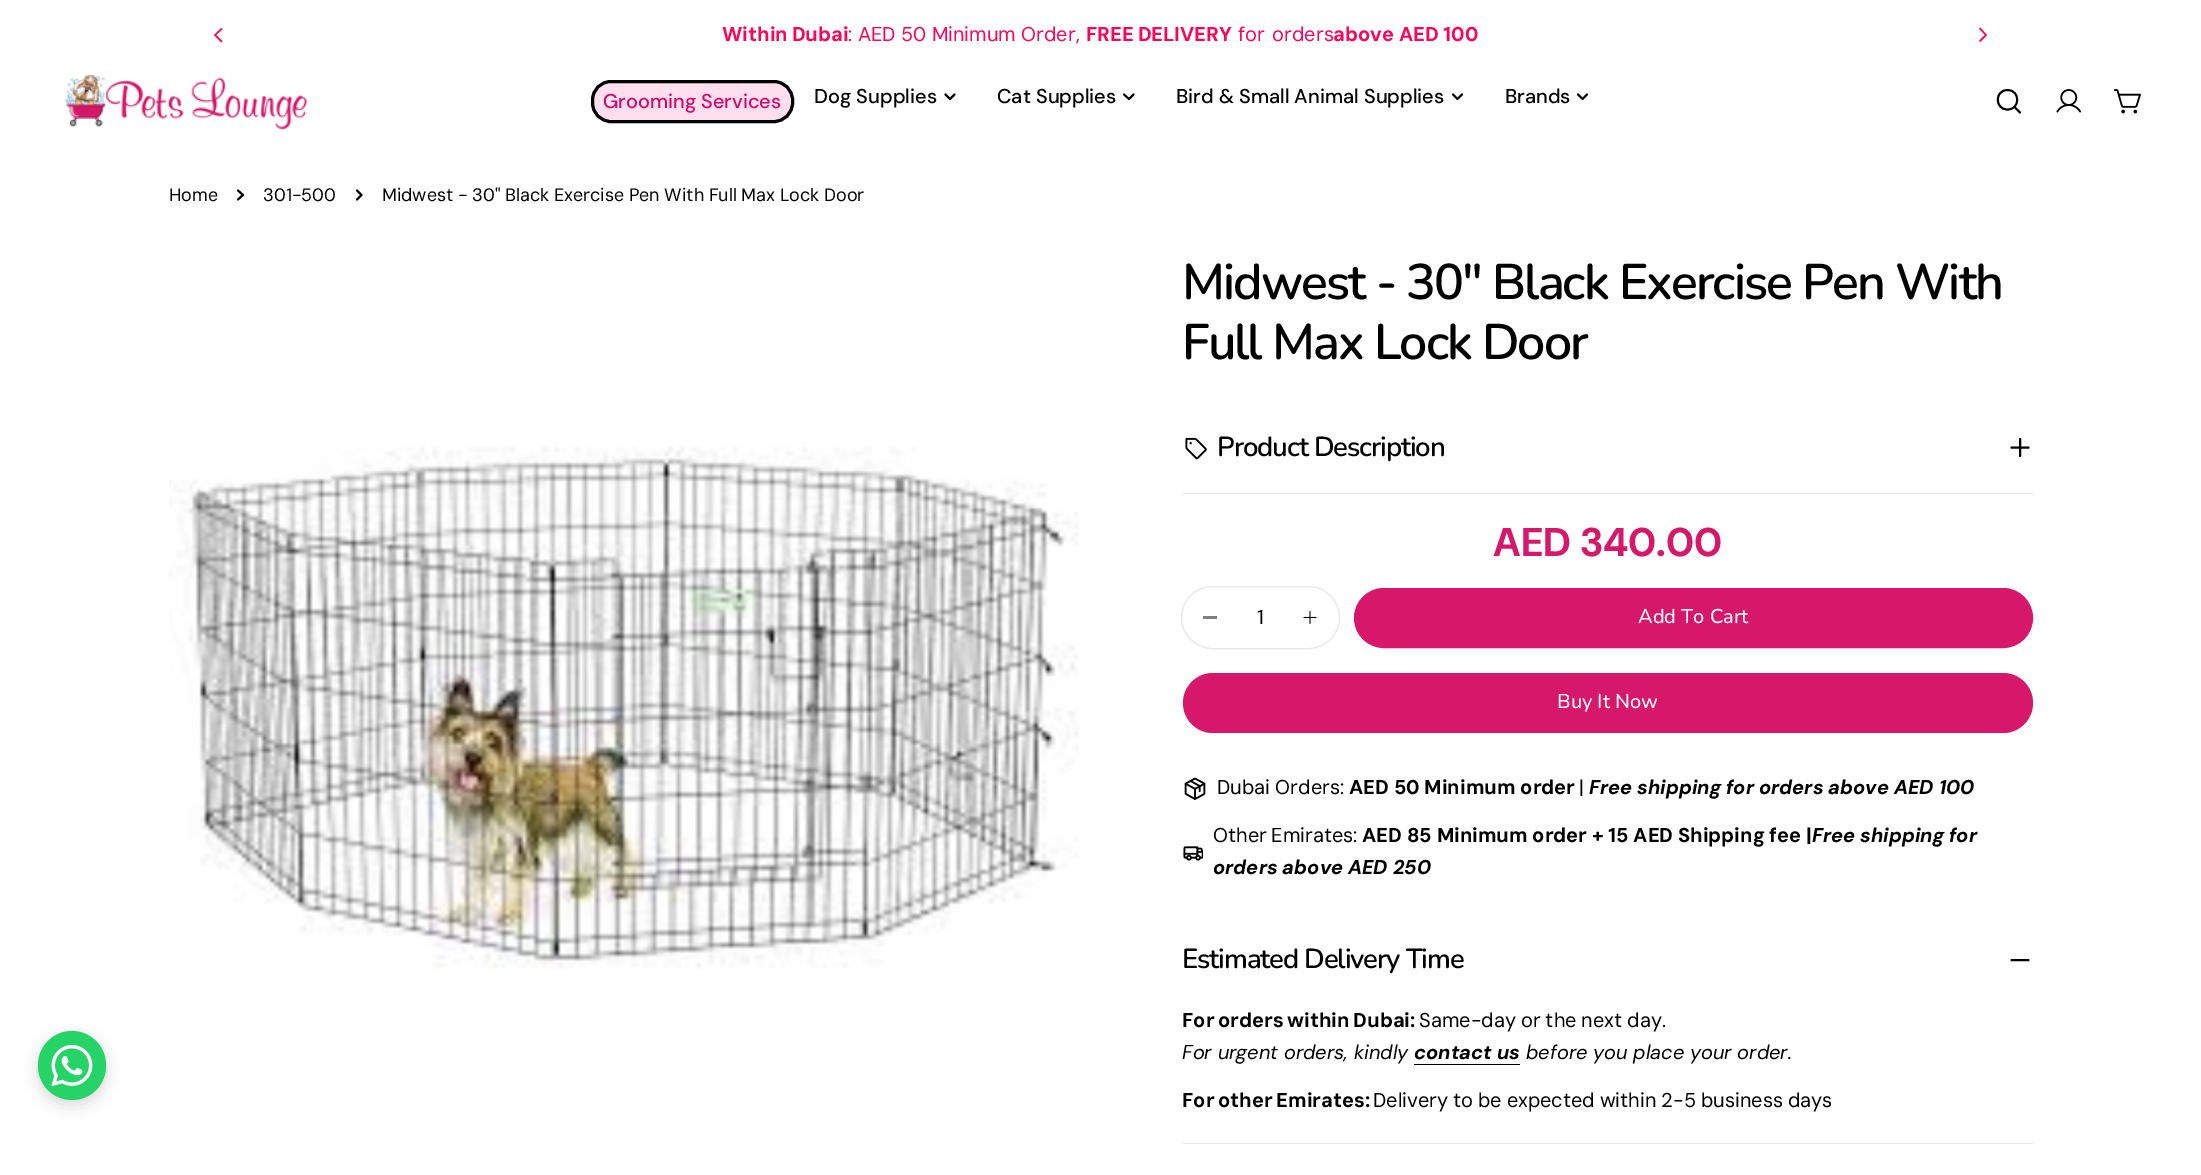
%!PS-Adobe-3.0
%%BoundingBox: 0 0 2201 1175
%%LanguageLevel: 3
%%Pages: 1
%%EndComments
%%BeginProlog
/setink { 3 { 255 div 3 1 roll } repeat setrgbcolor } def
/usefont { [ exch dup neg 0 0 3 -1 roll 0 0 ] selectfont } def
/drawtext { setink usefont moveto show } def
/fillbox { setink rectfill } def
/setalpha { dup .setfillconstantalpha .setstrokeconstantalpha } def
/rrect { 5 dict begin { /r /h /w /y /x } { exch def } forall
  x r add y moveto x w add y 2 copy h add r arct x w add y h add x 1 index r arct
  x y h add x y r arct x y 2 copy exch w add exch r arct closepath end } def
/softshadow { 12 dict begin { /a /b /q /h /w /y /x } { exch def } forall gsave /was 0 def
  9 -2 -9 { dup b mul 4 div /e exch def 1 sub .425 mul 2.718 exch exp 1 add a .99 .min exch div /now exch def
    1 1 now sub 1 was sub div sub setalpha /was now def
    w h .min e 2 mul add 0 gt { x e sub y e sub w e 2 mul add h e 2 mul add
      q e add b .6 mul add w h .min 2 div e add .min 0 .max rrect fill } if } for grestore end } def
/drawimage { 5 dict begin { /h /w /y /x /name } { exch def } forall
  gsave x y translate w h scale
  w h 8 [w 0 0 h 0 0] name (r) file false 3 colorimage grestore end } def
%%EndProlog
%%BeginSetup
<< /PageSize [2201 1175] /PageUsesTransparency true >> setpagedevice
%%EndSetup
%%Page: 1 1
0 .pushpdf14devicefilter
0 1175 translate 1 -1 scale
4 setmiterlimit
0 0 2201 1175 255 255 255 fillbox
/DMSans-Bold 20 usefont
255 3 89 setink
722 41 moveto -1 0 32 (Within Dubai) widthshow
(: AED 50 Minimum Order,) 848 41 /DMSans-Regular 20 255 3 89 drawtext
/DMSans-Bold 20 usefont
1086 41 moveto -1 0 32 (FREE DELIVERY) widthshow
/DMSans-Regular 20 usefont
1238 41 moveto 2 0 32 (for orders) widthshow
(above AED 100) 1333 41 /DMSans-Bold 20 255 3 89 drawtext
1.5 setlinewidth
1 setlinecap
1 setlinejoin
221.5 41.5 moveto 215 35 lineto 221.5 29 lineto stroke
1980 28.5 moveto 1986 35 lineto 1980 41 lineto stroke
(assets/img1.rgb) 65 74 243 56 drawimage
255 222 238 setink
592.5 81.5 200 40 18.5 rrect gsave fill grestore
0 0 0 setink
3 setlinewidth
0 setlinecap
0 setlinejoin
stroke
(Grooming Services) 603 108 /DMSans-Medium 20 211 8 105 drawtext
(Dog Supplies) 814 103 /DMSans-Medium 20 0 0 0 drawtext
1.9 setlinewidth
1 setlinecap
1 setlinejoin
954.5 94.5 moveto 950 99 lineto 945.5 94.5 lineto stroke
(Cat Supplies) 997 103 /DMSans-Medium 20 0 0 0 drawtext
1133.5 94.5 moveto 1129 99 lineto 1124 94.5 lineto stroke
(Bird & Small Animal Supplies) 1176 103 /DMSans-Medium 20 0 0 0 drawtext
1462 94.5 moveto 1457.5 99 lineto 1453 94.5 lineto stroke
(Brands) 1505 103 /DMSans-Medium 20 0 0 0 drawtext
1587 94.5 moveto 1582.5 99 lineto 1578 94.5 lineto stroke
2007.5 109.5 moveto 2020.5 109.5 2020.5 90 2007.5 90 curveto 1994.5 90 1994.5 109.5 2007.5 109.5 curveto closepath 2014.5 107 moveto 2020 112.5 lineto stroke
(assets/img2.rgb) 2056 89 25 24 drawimage
(assets/img3.rgb) 2114 89 27 25 drawimage
38 1036 68 69 34 7.5 0.15 softshadow
37 211 102 setink
38 1031 68 69 34 rrect fill
(assets/img4.rgb) 51 1045 42 41 drawimage
(Home) 169 201 /DMSans-Regular 18 0 0 0 drawtext
238 190.5 moveto 243 195 lineto 238 199.5 lineto stroke
(301-500) 263 201 /DMSans-Regular 18 0 0 0 drawtext
357 190.5 moveto 361.5 195 lineto 357 199.5 lineto stroke
382 201 moveto -0.25 0 32 (Midwest - 30" Black Exercise Pen With Full Max Lock Door) widthshow
(assets/img5.rgb) 169 446 910 523 drawimage
/Nunito-SemiBold 50 usefont
1182 299 moveto -2 0 (Midwest - 30" Black Exercise Pen With) ashow
1182 359 moveto -2 0 (Full Max Lock Door) ashow
1183 493 850 1 230 230 230 fillbox
(assets/img6.rgb) 1185 437 22 23 drawimage
/Nunito-SemiBold 27.5 usefont
0 0 0 setink
1217 456 moveto -1.1 0 (Product Description) ashow
2011.5 447.5 moveto 2028.5 447.5 lineto 2020 439 moveto 2020 456 lineto stroke
(AED 340.00) 1493 556 /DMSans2-Bold 40 214 23 106 drawtext
230 230 230 setink
1 setlinewidth
0 setlinecap
0 setlinejoin
1181.5 586.5 158 62 31 rrect stroke
1203 616 14 3 128 128 128 fillbox
(1) 1257 624 /DMSans-Regular 20 0 0 0 drawtext
(assets/img7.rgb) 1303 611 14 13 drawimage
214 23 106 setink
1354.5 588.5 678 59 29.5 rrect gsave fill grestore
stroke
(Add To Cart) 1638 623 /Nunito-Medium 20 255 255 255 drawtext
214 23 106 setink
1183 673 850 60 30 rrect fill
(Buy It Now) 1557 708 /Nunito-Medium 20 255 255 255 drawtext
(assets/img8.rgb) 1184 777 22 23 drawimage
(Dubai Orders:) 1217 794 /DMSans-Regular 20 0 0 0 drawtext
(AED 50 Minimum order) 1349 794 /DMSans-Bold 20 0 0 0 drawtext
(|) 1579 794 /DMSans-Regular 20 0 0 0 drawtext
(Free shipping for orders above AED 100) 1589 794 /DMSans-BoldItalic 20 0 0 0 drawtext
(assets/img9.rgb) 1183 846 20 15 drawimage
/DMSans-Regular 20 usefont
1213 842 moveto -1 0 32 (Other Emirates:) widthshow
(AED 85 Minimum order + 15 AED Shipping fee |) 1362 842 /DMSans-Bold 20 0 0 0 drawtext
(Free shipping for) 1812 842 /DMSans-BoldItalic 20 0 0 0 drawtext
(orders above AED 250) 1213 874 /DMSans-BoldItalic 20 0 0 0 drawtext
1183 1143 850 1 230 230 230 fillbox
/Nunito-SemiBold 27.5 usefont
0 0 0 setink
1182 968 moveto -1.1 0 (Estimated Delivery Time) ashow
1.9 setlinewidth
1 setlinecap
1 setlinejoin
2011.5 960 moveto 2028.5 960 lineto 2011.5 960 moveto 2028.5 960 lineto stroke
/DMSans-Bold 20 usefont
1182 1027 moveto -1 0 32 (For orders within Dubai:) widthshow
/DMSans-Regular 20 usefont
1419 1027 moveto -0.5 0 32 (Same-day or the next day.) widthshow
(For urgent orders, kindly) 1182 1059 /DMSans-Italic 20 0 0 0 drawtext
(contact us) 1414 1059 /DMSans-BoldItalic 20 0 0 0 drawtext
1414 1064 106 1 0 0 0 fillbox
(before you place your order.) 1526 1059 /DMSans-Italic 20 0 0 0 drawtext
/DMSans-Bold 20 usefont
1182 1107 moveto -1 0 32 (For other Emirates:) widthshow
/DMSans-Regular 20 usefont
1373 1107 moveto -0.5 0 32 (Delivery to be expected within 2-5 business days) widthshow
.poppdf14devicefilter showpage
%%EOF
